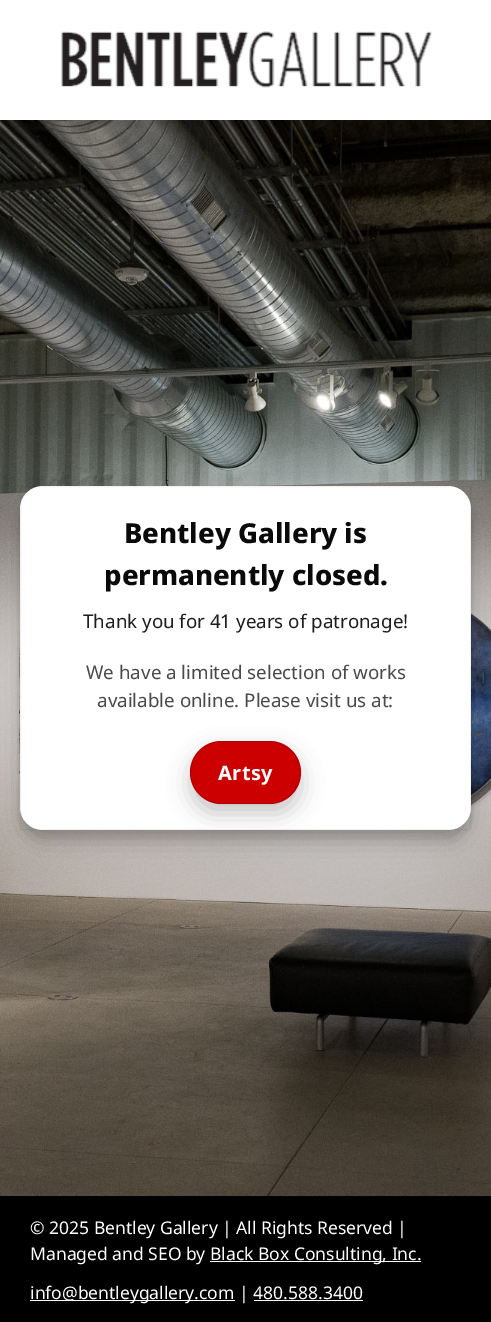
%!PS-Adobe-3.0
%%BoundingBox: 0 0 491 1322
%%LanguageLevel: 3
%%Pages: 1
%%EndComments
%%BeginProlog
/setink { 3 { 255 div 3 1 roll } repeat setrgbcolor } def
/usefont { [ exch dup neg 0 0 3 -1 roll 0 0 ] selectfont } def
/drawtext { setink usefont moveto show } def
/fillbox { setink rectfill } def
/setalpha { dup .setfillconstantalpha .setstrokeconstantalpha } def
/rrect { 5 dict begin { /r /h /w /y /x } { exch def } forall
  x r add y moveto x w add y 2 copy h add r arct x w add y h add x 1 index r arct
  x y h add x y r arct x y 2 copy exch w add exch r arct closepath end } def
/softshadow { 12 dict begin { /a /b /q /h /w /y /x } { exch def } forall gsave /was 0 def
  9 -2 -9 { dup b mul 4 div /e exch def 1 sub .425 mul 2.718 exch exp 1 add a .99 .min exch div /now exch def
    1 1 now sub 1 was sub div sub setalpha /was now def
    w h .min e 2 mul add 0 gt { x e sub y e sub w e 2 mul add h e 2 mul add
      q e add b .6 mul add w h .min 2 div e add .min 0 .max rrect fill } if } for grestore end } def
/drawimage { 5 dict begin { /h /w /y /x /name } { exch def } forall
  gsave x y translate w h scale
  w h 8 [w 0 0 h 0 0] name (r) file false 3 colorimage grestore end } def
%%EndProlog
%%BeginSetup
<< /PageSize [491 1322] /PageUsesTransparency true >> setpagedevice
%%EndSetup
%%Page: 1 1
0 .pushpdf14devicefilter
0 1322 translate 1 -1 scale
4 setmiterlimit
0 0 491 1322 255 255 255 fillbox
(assets/img1.rgb) 0 120 491 1076 drawimage
0 0 0 setink
0 5 491 120 0 6 0.15 softshadow
0 0 491 120 255 255 255 fillbox
(assets/img2.rgb) 61 31 371 57 drawimage
0 0 0 setink
20 494 451 344 23 4 0.12 softshadow
20 499 451 344 23 12.5 0.18 softshadow
255 255 255 setink
20 486 451 344 23 rrect fill
0.06 setalpha
0 0 0 setink
20.5 486.5 450 343 rectstroke
1 setalpha
(Bentley Gallery is) 124 543 /NotoSans-ExtraBold 27.5 10 10 10 drawtext
(permanently closed.) 104 585 /NotoSans-ExtraBold 27.5 10 10 10 drawtext
(Thank you for 41 years of patronage!) 83 628 /NotoSans-Regular 18.75 30 30 30 drawtext
(We have a limited selection of works) 86 679 /NotoSans-Regular 18.75 74 74 74 drawtext
(available online. Please visit us at:) 97 707 /NotoSans-Regular 18.75 74 74 74 drawtext
0 0 0 setink
190 751 111 63 31.5 11 0.22 softshadow
204 0 0 setink
190 741 111 63 31.5 rrect fill
0.12 setalpha
0 0 0 setink
190.5 741.5 110 62 31 rrect stroke
/NotoSans-Bold 20 usefont
1 setalpha
255 255 255 setink
218 780 moveto 0.5 0 (Artsy) ashow
0 1196 491 126 0 0 0 fillbox
(© 2025 Bentley Gallery | All Rights Reserved |) 30 1234 /NotoSans-Regular 17.5 255 255 255 drawtext
(Managed and SEO by) 30 1260 /NotoSans-Regular 17.5 255 255 255 drawtext
210 1261 211 1 255 255 255 fillbox
(Black Box Consulting, Inc.) 210 1260 /NotoSans-Regular 17.5 255 255 255 drawtext
30 1300 205 1 255 255 255 fillbox
(info@bentleygallery.com | 480.588.3400) 30 1299 /NotoSans-Regular 17.5 255 255 255 drawtext
254 1300 109 1 255 255 255 fillbox
.poppdf14devicefilter showpage
%%EOF
